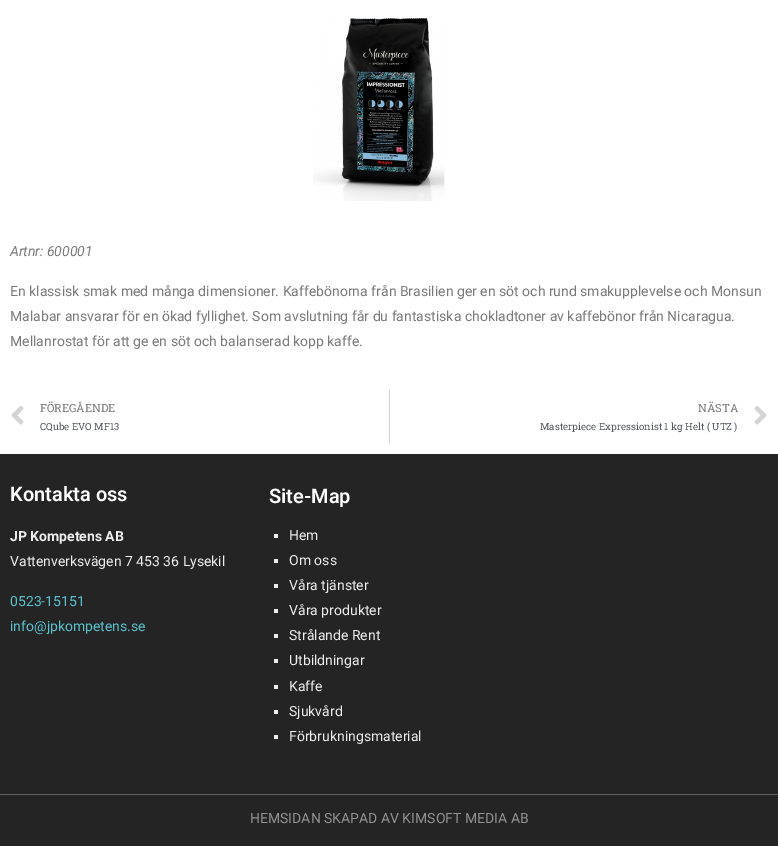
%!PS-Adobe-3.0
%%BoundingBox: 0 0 778 846
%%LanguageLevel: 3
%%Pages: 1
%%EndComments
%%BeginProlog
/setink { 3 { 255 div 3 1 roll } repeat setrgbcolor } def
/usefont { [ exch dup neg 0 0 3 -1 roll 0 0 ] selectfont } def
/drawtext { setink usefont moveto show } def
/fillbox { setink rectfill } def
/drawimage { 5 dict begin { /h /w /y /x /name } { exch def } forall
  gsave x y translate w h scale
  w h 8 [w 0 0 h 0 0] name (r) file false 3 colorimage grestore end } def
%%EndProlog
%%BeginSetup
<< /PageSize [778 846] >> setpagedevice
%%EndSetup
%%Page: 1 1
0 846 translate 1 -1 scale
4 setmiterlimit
0 0 778 846 255 255 255 fillbox
(assets/img1.rgb) 313 18 132 183 drawimage
(Artnr: 600001) 10 256 /Roboto-Italic 14 122 122 122 drawtext
(En klassisk smak med många dimensioner. Kaffebönorna från Brasilien ger en söt och rund smakupplevelse och Monsun) 10 296 /Roboto-Regular 14 122 122 122 drawtext
(Malabar ansvarar för en ökad fyllighet. Som avslutning får du fantastiska chokladtoner av kaffebönor från Nicaragua.) 10 321 /Roboto-Regular 14 122 122 122 drawtext
(Mellanrostat för att ge en söt och balanserad kopp kaffe.) 10 346 /Roboto-Regular 14 122 122 122 drawtext
(assets/img2.rgb) 11 406 13 19 drawimage
(FÖREGÅENDE) 40 412 /RobotoSlab-Regular 11.25 122 122 122 drawtext
(CQube EVO MF13) 40 430 /RobotoSlab-Regular 9.8 84 89 95 drawtext
389 390 1 54 212 212 212 fillbox
(NÄSTA) 698 412 /RobotoSlab-Regular 11.25 122 122 122 drawtext
(Masterpiece Expressionist 1 kg Helt \( UTZ \)) 540 430 /RobotoSlab-Regular 9.8 84 89 95 drawtext
(assets/img3.rgb) 754 406 13 19 drawimage
0 454 778 340 36 36 36 fillbox
(Kontakta oss) 10 501 /Roboto-SemiBold 20 255 255 255 drawtext
(JP Kompetens AB) 10 541 /Roboto-Bold 14 237 237 237 drawtext
(Vattenverksvägen 7 453 36 Lysekil) 10 566 /Roboto-Regular 14 237 237 237 drawtext
(0523-15151) 10 606 /Roboto-Regular 14 91 194 206 drawtext
(info@jpkompetens.se) 10 631 /Roboto-Regular 14 91 194 206 drawtext
(Site-Map) 269 503 /Roboto-SemiBold 20 255 255 255 drawtext
274 534 4 4 237 237 237 fillbox
(Hem) 289 540 /Roboto-Regular 14 237 237 237 drawtext
274 559 4 4 237 237 237 fillbox
(Om oss) 289 565 /Roboto-Regular 14 237 237 237 drawtext
274 584 4 4 237 237 237 fillbox
(Våra tjänster) 289 590 /Roboto-Regular 14 237 237 237 drawtext
274 609 4 4 237 237 237 fillbox
(Våra produkter) 289 615 /Roboto-Regular 14 237 237 237 drawtext
274 634 4 4 237 237 237 fillbox
(Strålande Rent) 289 640 /Roboto-Regular 14 237 237 237 drawtext
274 659 4 4 237 237 237 fillbox
(Utbildningar) 289 665 /Roboto-Regular 14 237 237 237 drawtext
274 685 4 4 237 237 237 fillbox
(Kaffe) 289 691 /Roboto-Regular 14 237 237 237 drawtext
274 710 4 4 237 237 237 fillbox
(Sjukvård) 289 716 /Roboto-Regular 14 237 237 237 drawtext
274 735 4 4 237 237 237 fillbox
(Förbrukningsmaterial) 289 741 /Roboto-Regular 14 237 237 237 drawtext
0 795 778 51 36 36 36 fillbox
0 794 778 1 96 96 96 fillbox
(HEMSIDAN SKAPAD AV KIMSOFT MEDIA AB) 250 823 /Roboto-Regular 14 147 147 147 drawtext
showpage
%%EOF
